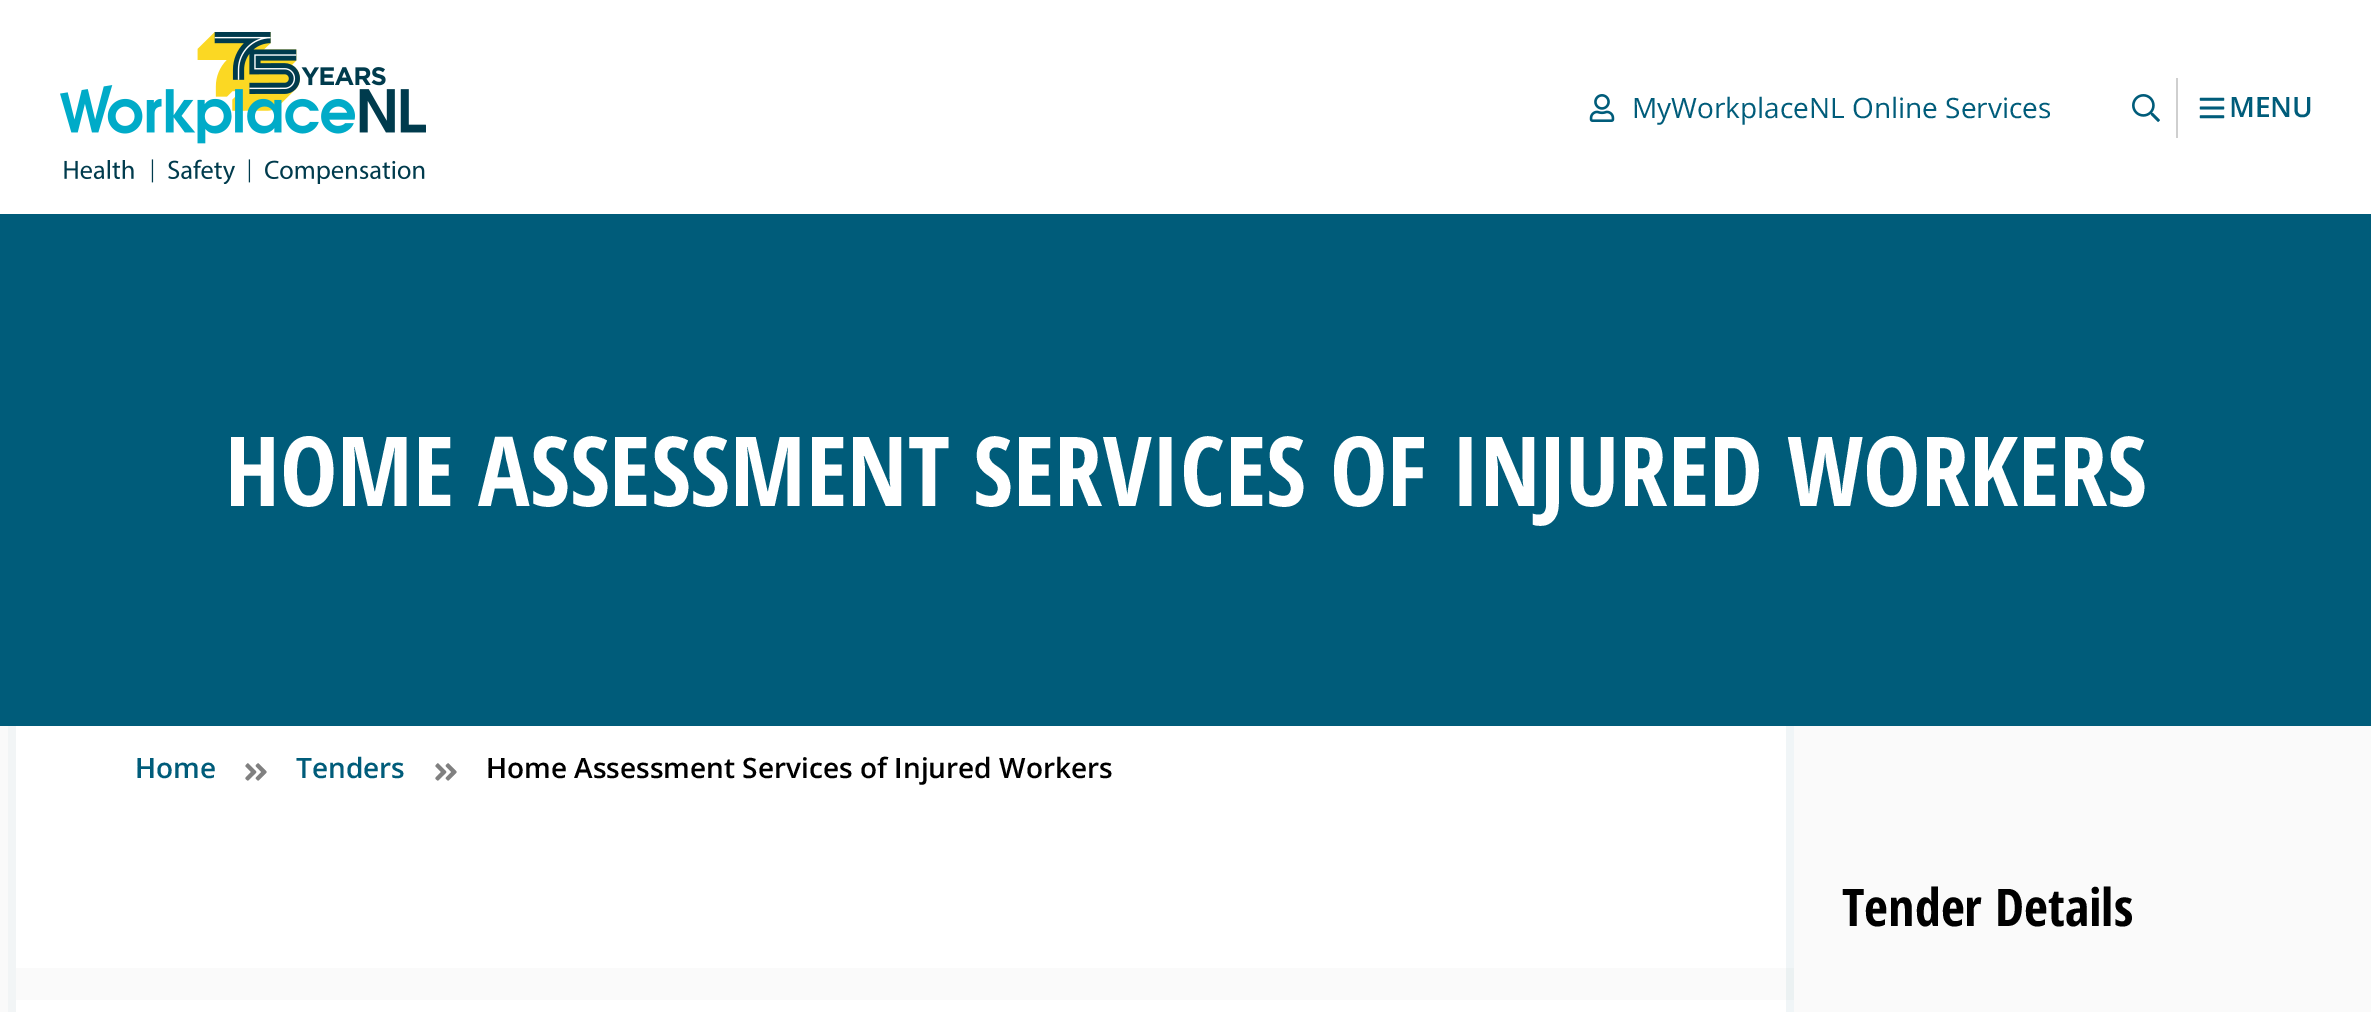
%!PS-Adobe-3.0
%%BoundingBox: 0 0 2371 1012
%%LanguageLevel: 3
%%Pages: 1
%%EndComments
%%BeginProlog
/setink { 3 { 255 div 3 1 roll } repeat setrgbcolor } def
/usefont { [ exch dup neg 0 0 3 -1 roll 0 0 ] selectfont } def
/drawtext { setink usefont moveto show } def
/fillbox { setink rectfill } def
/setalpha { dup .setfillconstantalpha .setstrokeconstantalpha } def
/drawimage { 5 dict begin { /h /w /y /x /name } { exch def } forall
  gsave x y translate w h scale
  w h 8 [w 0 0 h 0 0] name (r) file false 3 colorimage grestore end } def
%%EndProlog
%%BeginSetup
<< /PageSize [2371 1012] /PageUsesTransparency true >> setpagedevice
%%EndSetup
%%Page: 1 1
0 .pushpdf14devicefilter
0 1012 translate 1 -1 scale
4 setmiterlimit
0 0 2371 1012 255 255 255 fillbox
(assets/img1.rgb) 60 32 366 152 drawimage
(assets/img2.rgb) 1589 94 26 28 drawimage
(MyWorkplaceNL Online Services) 1632 118 /OpenSans-Regular 28 0 92 122 drawtext
2176 78 2 60 207 207 207 fillbox
(assets/img3.rgb) 2132 94 28 28 drawimage
(assets/img4.rgb) 2199 97 26 22 drawimage
(MENU) 2229 117 /OpenSans-SemiBold 28 0 92 122 drawtext
0 726 2371 286 250 250 250 fillbox
0 214 2371 512 0 92 122 fillbox
(HOME ASSESSMENT SERVICES OF INJURED WORKERS) 225 506 /OpenSansCondensed-Bold 96.6 255 255 255 drawtext
0.03 setalpha
0 92 122 setink
8 722 moveto 8 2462 lineto 2356 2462 lineto 2356 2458 lineto 16 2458 lineto 16 726 lineto 2356 726 lineto 2356 722 lineto closepath fill
1 setalpha
16 726 1778 286 255 255 255 fillbox
(Home) 135 778 /OpenSans-SemiBold 28 0 92 122 drawtext
(assets/img5.rgb) 245 763 22 18 drawimage
(Tenders) 296 778 /OpenSans-SemiBold 28 0 92 122 drawtext
(assets/img6.rgb) 435 763 22 18 drawimage
(Home Assessment Services of Injured Workers) 486 778 /OpenSans-SemiBold 28 0 0 0 drawtext
16 968 1778 32 250 250 250 fillbox
0.06 setalpha
0 92 122 setink
1786 722 moveto 1786 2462 lineto 2356 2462 lineto 2356 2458 lineto 1794 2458 lineto 1794 726 lineto 2356 726 lineto 2356 722 lineto closepath fill
1 setalpha
(Tender Details) 1842 926 /OpenSansCondensed-Bold 52 0 0 0 drawtext
.poppdf14devicefilter showpage
%%EOF
